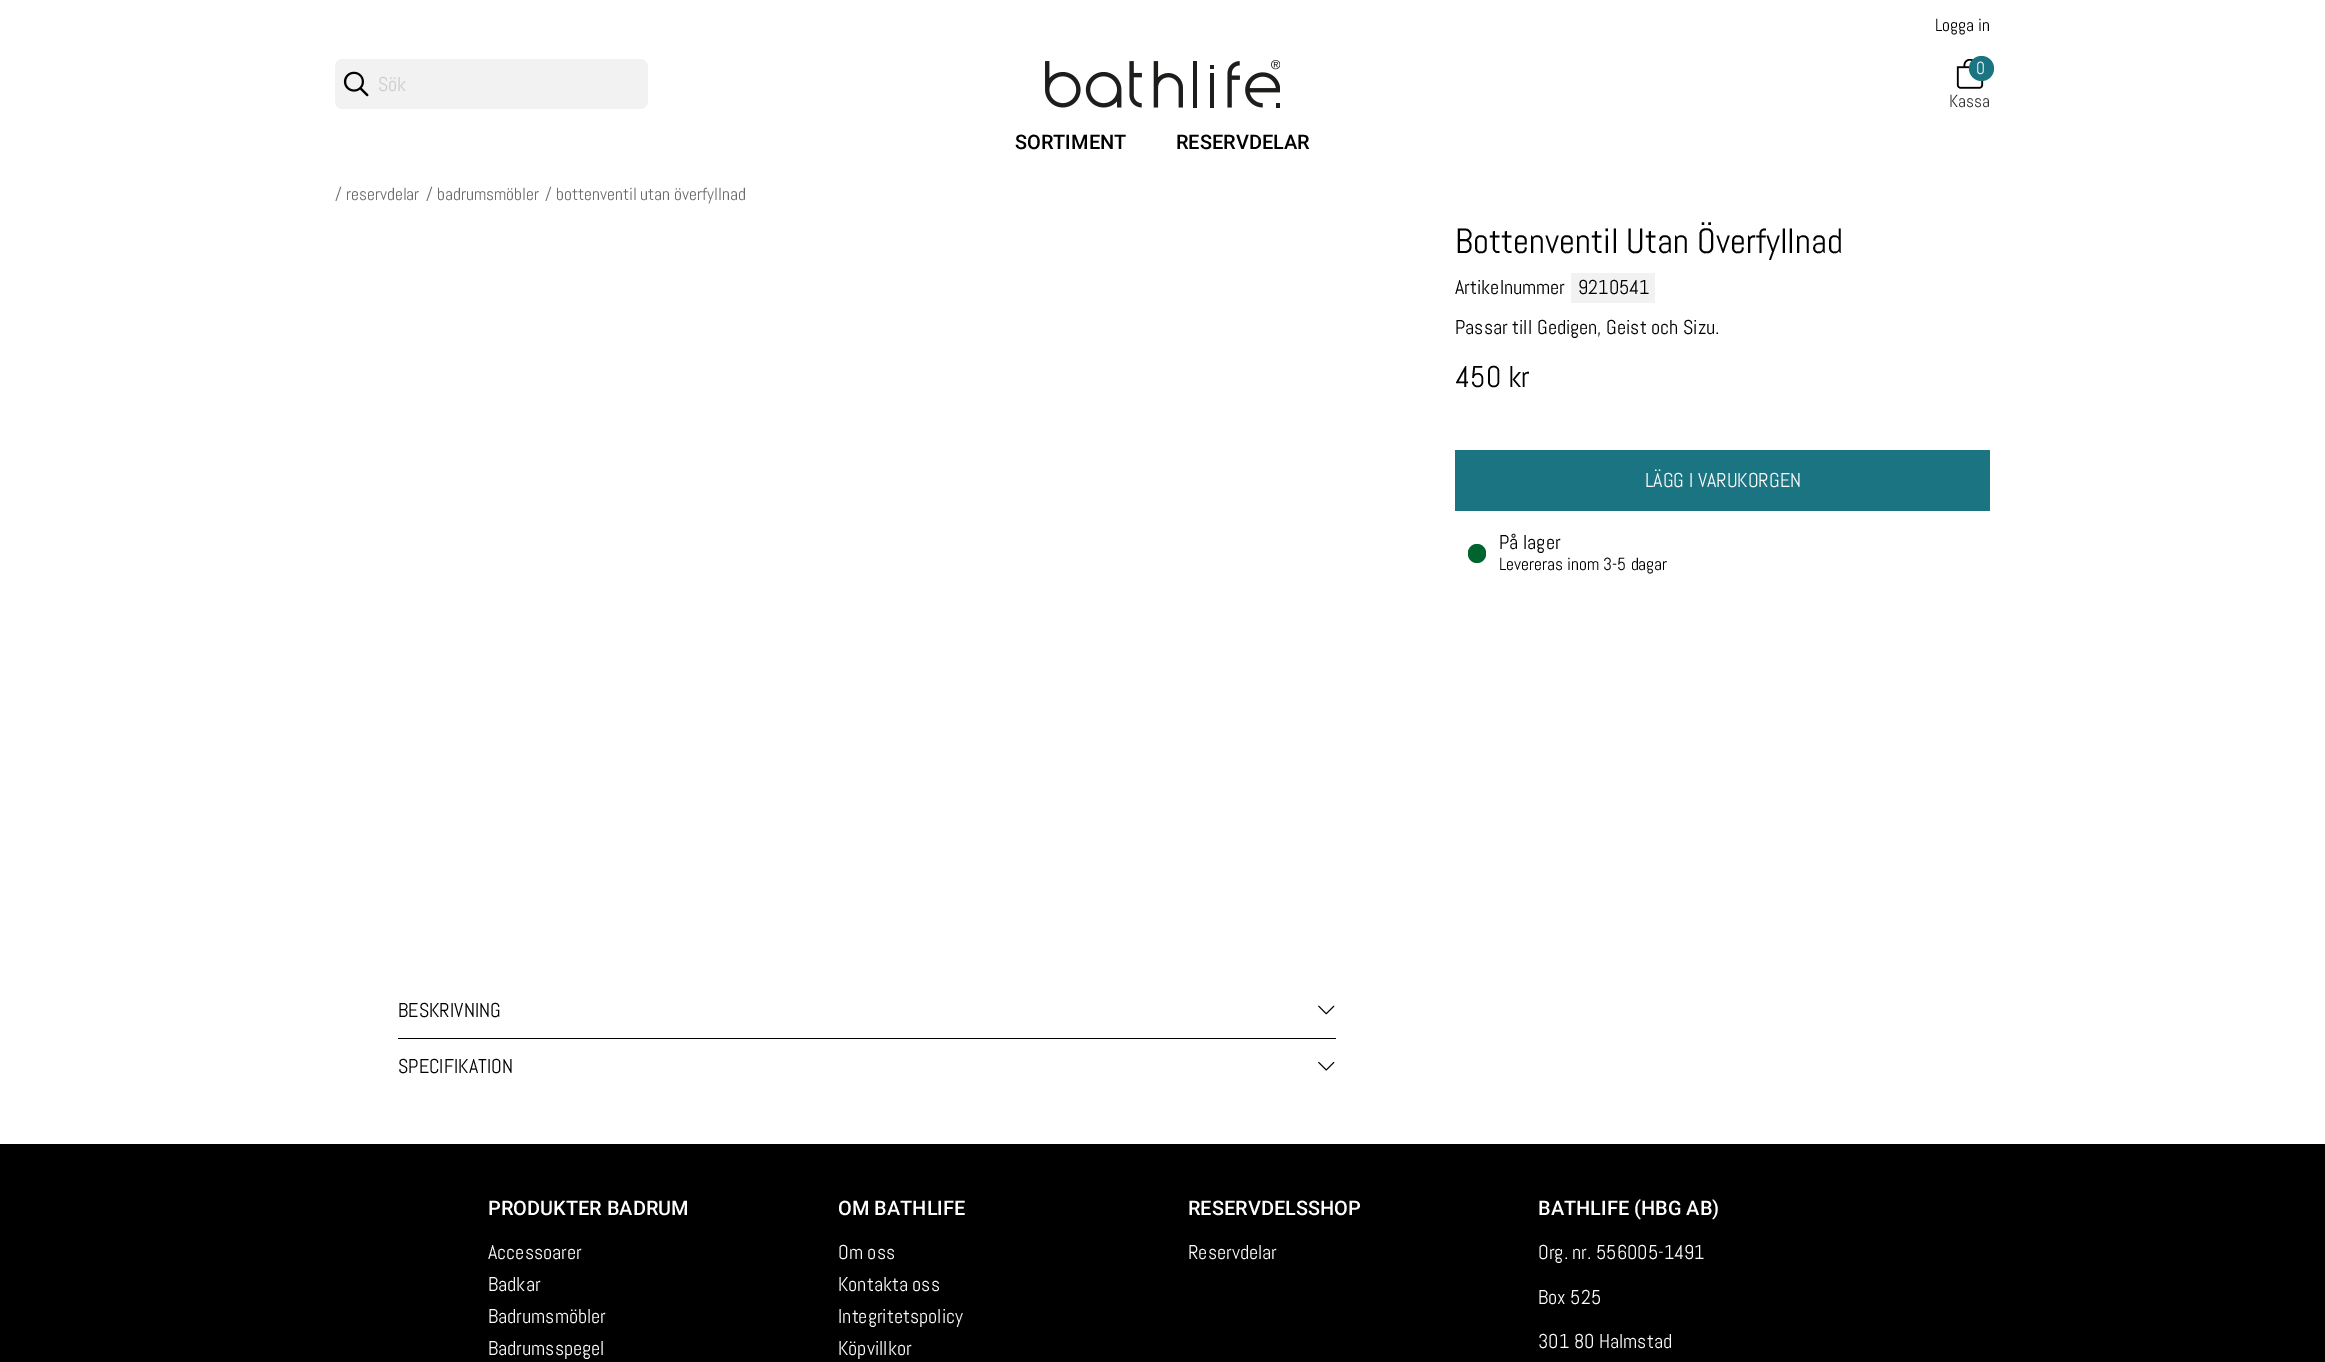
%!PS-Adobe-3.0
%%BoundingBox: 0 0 2325 1362
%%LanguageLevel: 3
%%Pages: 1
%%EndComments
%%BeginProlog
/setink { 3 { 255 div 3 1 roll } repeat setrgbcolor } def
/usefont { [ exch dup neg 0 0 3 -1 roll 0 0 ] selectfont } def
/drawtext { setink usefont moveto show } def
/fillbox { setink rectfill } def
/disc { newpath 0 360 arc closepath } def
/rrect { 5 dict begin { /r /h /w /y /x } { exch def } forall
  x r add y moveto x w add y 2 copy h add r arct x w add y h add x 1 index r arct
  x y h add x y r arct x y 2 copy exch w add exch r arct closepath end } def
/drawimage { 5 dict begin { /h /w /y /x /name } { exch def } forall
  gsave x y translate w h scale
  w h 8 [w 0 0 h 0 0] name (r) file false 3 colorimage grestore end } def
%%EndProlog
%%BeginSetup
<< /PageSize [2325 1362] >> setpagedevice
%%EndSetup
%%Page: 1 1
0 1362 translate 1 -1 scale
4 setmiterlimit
0 0 2325 1362 255 255 255 fillbox
(Logga in) 1935 31 /Abel-Regular 17.5 0 0 0 drawtext
242 242 242 setink
335 59 313 50 8 rrect fill
(assets/img1.rgb) 343 71 26 26 drawimage
(Sök) 378 91 /Abel-Regular 20 204 204 204 drawtext
(assets/img2.rgb) 1045 60 235 48 drawimage
(assets/img3.rgb) 1956 59 28 30 drawimage
27 116 129 setink
1981.5 68.5 12.5 disc fill
(0) 1976 74 /Abel-Regular 17.5 254 254 254 drawtext
(Kassa) 1949 107 /Abel-Regular 17.5 51 51 51 drawtext
(SORTIMENT) 1015 149 /Roboto-Medium 20 0 0 0 drawtext
(RESERVDELAR) 1176 149 /Roboto-Medium 20 0 0 0 drawtext
(/ reservdelar) 335 200 /Abel-Regular 17.5 108 108 108 drawtext
(/ badrumsmöbler) 426 200 /Abel-Regular 17.5 108 108 108 drawtext
(/ bottenventil utan överfyllnad) 545 200 /Abel-Regular 17.5 108 108 108 drawtext
(Bottenventil Utan Överfyllnad) 1455 253 /Abel-Regular 35 0 0 0 drawtext
(Artikelnummer) 1455 294 /Abel-Regular 20 0 0 0 drawtext
1571 273 84 30 242 242 242 fillbox
(9210541) 1578 294 /Abel-Regular 20 0 0 0 drawtext
(Passar till Gedigen, Geist och Sizu.) 1455 334 /Abel-Regular 20 0 0 0 drawtext
(450 kr) 1455 387 /Abel-Regular 30 0 0 0 drawtext
1455 450 535 61 27 116 129 fillbox
(LÄGG I VARUKORGEN) 1645 487 /Abel-Regular 20 254 254 254 drawtext
0 100 47 setink
1468 544 18 19 9 rrect fill
(På lager) 1499 549 /Abel-Regular 20 0 0 0 drawtext
(Levereras inom 3-5 dagar) 1499 570 /Abel-Regular 17.5 0 0 0 drawtext
398 1038 938 1 0 0 0 fillbox
(BESKRIVNING) 398 1017 /Abel-Regular 20 0 0 0 drawtext
(assets/img4.rgb) 1318 1005 17 10 drawimage
(SPECIFIKATION) 398 1073 /Abel-Regular 20 0 0 0 drawtext
(assets/img5.rgb) 1318 1061 17 10 drawimage
0 1144 2325 218 0 0 0 fillbox
(PRODUKTER BADRUM) 488 1215 /Roboto-Medium 20 254 254 254 drawtext
(Accessoarer) 488 1259 /Abel-Regular 20 254 254 254 drawtext
(Badkar) 488 1291 /Abel-Regular 20 254 254 254 drawtext
(Badrumsmöbler) 488 1323 /Abel-Regular 20 254 254 254 drawtext
(Badrumsspegel) 488 1355 /Abel-Regular 20 254 254 254 drawtext
(OM BATHLIFE) 838 1215 /Roboto-Medium 20 254 254 254 drawtext
(Om oss) 838 1259 /Abel-Regular 20 254 254 254 drawtext
(Kontakta oss) 838 1291 /Abel-Regular 20 254 254 254 drawtext
(Integritetspolicy) 838 1323 /Abel-Regular 20 254 254 254 drawtext
(Köpvillkor) 838 1355 /Abel-Regular 20 254 254 254 drawtext
(RESERVDELSSHOP) 1188 1215 /Roboto-Medium 20 254 254 254 drawtext
(Reservdelar) 1188 1259 /Abel-Regular 20 254 254 254 drawtext
(BATHLIFE \(HBG AB\)) 1538 1215 /Roboto-Medium 20 254 254 254 drawtext
(Org. nr. 556005-1491) 1538 1259 /Abel-Regular 20 254 254 254 drawtext
(Box 525) 1538 1304 /Abel-Regular 20 254 254 254 drawtext
(301 80 Halmstad) 1538 1348 /Abel-Regular 20 254 254 254 drawtext
showpage
%%EOF
